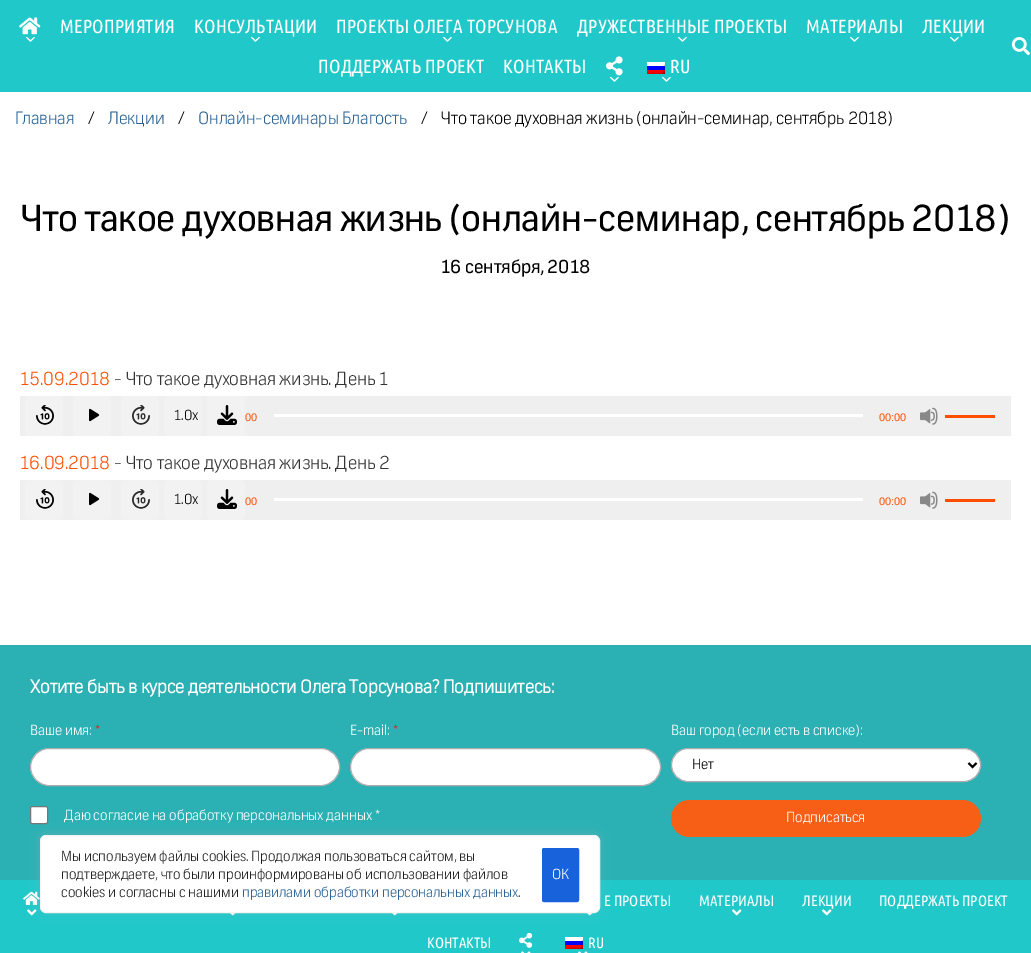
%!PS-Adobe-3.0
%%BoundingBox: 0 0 1031 953
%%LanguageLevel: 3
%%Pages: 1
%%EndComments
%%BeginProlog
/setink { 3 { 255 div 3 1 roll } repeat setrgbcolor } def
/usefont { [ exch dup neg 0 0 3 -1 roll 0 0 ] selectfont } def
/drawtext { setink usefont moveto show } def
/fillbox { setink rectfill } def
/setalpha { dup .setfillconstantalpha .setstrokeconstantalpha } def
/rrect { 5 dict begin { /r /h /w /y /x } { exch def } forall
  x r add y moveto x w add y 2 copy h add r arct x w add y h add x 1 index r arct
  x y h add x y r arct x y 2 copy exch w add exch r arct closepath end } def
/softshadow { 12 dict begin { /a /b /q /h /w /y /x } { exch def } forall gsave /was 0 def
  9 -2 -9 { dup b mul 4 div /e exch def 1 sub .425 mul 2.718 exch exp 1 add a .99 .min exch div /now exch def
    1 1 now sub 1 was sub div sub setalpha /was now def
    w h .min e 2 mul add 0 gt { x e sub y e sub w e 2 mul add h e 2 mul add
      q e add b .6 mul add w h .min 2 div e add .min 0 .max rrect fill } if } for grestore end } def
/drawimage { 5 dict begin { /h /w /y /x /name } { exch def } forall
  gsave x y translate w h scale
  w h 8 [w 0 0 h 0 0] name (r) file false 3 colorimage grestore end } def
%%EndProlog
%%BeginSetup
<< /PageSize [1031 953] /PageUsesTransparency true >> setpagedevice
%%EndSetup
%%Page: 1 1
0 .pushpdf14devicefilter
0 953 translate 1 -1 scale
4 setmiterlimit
0 0 1031 953 255 255 255 fillbox
0 0 1031 92 33 200 202 fillbox
(assets/img1.rgb) 19 17 22 18 drawimage
(assets/img2.rgb) 26 36 9 6 drawimage
/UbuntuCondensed-Regular 19 usefont
255 255 255 setink
60 33 moveto 0.2 0 (МЕРОПРИЯТИЯ) ashow
194 33 moveto 0.2 0 (КОНСУЛЬТАЦИИ) ashow
(assets/img2.rgb) 251 36 9 6 drawimage
336 33 moveto 0.2 0 (ПРОЕКТЫ ОЛЕГА ТОРСУНОВА) ashow
(assets/img2.rgb) 443 36 9 6 drawimage
577 33 moveto 0.2 0 (ДРУЖЕСТВЕННЫЕ ПРОЕКТЫ) ashow
(assets/img2.rgb) 678 36 9 6 drawimage
806 33 moveto 0.2 0 (МАТЕРИАЛЫ) ashow
(assets/img2.rgb) 850 36 9 6 drawimage
922 33 moveto 0.2 0 (ЛЕКЦИИ) ashow
(assets/img2.rgb) 950 36 9 6 drawimage
318 73 moveto 0.2 0 (ПОДДЕРЖАТЬ ПРОЕКТ) ashow
503 73 moveto 0.2 0 (КОНТАКТЫ) ashow
(assets/img3.rgb) 606 56 17 20 drawimage
(assets/img2.rgb) 610 76 9 6 drawimage
(assets/img4.rgb) 647 62 18 12 drawimage
670 73 moveto 0.2 0 (RU) ashow
(assets/img2.rgb) 662 76 9 6 drawimage
(assets/img5.rgb) 1011 37 19 19 drawimage
(Главная) 15 124 /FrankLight-Light 17 42 100 150 drawtext
(/) 88 124 /FrankLight-Light 17 0 0 0 drawtext
(Лекции) 108 124 /FrankLight-Light 17 42 100 150 drawtext
(/) 178 124 /FrankLight-Light 17 0 0 0 drawtext
(Онлайн-семинары Благость) 198 124 /FrankLight-Light 17 42 100 150 drawtext
(/) 421 124 /FrankLight-Light 17 0 0 0 drawtext
(Что такое духовная жизнь \(онлайн-семинар, сентябрь 2018\)) 441 124 /FrankLight-Light 17 0 0 0 drawtext
(Что такое духовная жизнь \(онлайн-семинар, сентябрь 2018\)) 21 231 /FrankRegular-Regular 36 0 0 0 drawtext
(16 сентября, 2018) 441 273 /FrankRegular-Regular 18 0 0 0 drawtext
(15.09.2018) 20 385 /FrankLight-Light 18 255 78 0 drawtext
(- Что такое духовная жизнь. День 1) 114 385 /FrankLight-Light 18 51 51 51 drawtext
20 396 991 40 239 239 239 fillbox
242 242 242 setink
25 396 38 40 5 rrect fill
(assets/img6.rgb) 36 405 18 20 drawimage
73 396 38 40 5 rrect fill
(assets/img7.rgb) 89 408 11 14 drawimage
121 396 38 40 5 rrect fill
(assets/img8.rgb) 132 405 18 20 drawimage
164 396 38 40 5 rrect fill
(1.0x) 174 420 /FrankLight-Light 14 0 0 0 drawtext
242 242 242 setink
207 396 38 40 5 rrect fill
(assets/img9.rgb) 217 405 20 20 drawimage
(00) 245 421 /LiberationSans-Regular 11 255 78 0 drawtext
274 414 589 3 255 255 255 fillbox
(00:00) 879 421 /LiberationSans-Regular 11 255 78 0 drawtext
(assets/img10.rgb) 920 407 18 18 drawimage
945 415 50 3 255 78 0 fillbox
(16.09.2018) 20 469 /FrankLight-Light 18 255 78 0 drawtext
(- Что такое духовная жизнь. День 2) 114 469 /FrankLight-Light 18 51 51 51 drawtext
20 480 991 40 239 239 239 fillbox
242 242 242 setink
25 480 38 40 5 rrect fill
(assets/img6.rgb) 36 489 18 20 drawimage
73 480 38 40 5 rrect fill
(assets/img7.rgb) 89 492 11 14 drawimage
121 480 38 40 5 rrect fill
(assets/img8.rgb) 132 489 18 20 drawimage
164 480 38 40 5 rrect fill
(1.0x) 174 504 /FrankLight-Light 14 0 0 0 drawtext
242 242 242 setink
207 480 38 40 5 rrect fill
(assets/img9.rgb) 217 489 20 20 drawimage
(00) 245 505 /LiberationSans-Regular 11 255 78 0 drawtext
274 498 589 3 255 255 255 fillbox
(00:00) 879 505 /LiberationSans-Regular 11 255 78 0 drawtext
(assets/img10.rgb) 920 491 18 18 drawimage
945 499 50 3 255 78 0 fillbox
0 645 1031 235 43 177 180 fillbox
(Хотите быть в курсе деятельности Олега Торсунова? Подпишитесь:) 30 693 /FrankLight-Bold 18 255 255 255 drawtext
(Ваше имя:) 30 735 /FrankLight-Light 14 255 255 255 drawtext
(*) 95 735 /FrankLight-Light 14 223 27 27 drawtext
255 255 255 setink
30.5 748.5 309 37 18.5 rrect gsave fill grestore
173 173 173 setink
stroke
(E-mail:) 350 735 /FrankLight-Light 14 255 255 255 drawtext
(*) 393 735 /FrankLight-Light 14 223 27 27 drawtext
255 255 255 setink
350.5 748.5 310 37 18.5 rrect gsave fill grestore
173 173 173 setink
stroke
(Ваш город \(если есть в списке\):) 671 735 /FrankLight-Light 14 255 255 255 drawtext
671.5 748.5 309 33 16.5 rrect gsave fill grestore
173 173 173 setink
stroke
0 0 0 setink
2 setlinewidth
968.5 763 moveto 972.5 767 lineto 976.5 763 lineto stroke
(Нет) 692 769 /FrankLight-Light 14 0 0 0 drawtext
255 255 255 setink
30.5 806.5 17 17 1.5 rrect gsave fill grestore
118 118 118 setink
1 setlinewidth
stroke
(Даю согласие на обработку персональных данных *) 64 820 /FrankLight-Light 14 255 255 255 drawtext
247 95 23 setink
671 800 310 37 18.5 rrect fill
(Подписаться) 786 822 /FrankLight-Light 14 255 255 255 drawtext
0 880 1031 73 33 200 202 fillbox
(assets/img11.rgb) 23 891 17 14 drawimage
(assets/img12.rgb) 27 909 10 7 drawimage
(Е ПРОЕКТЫ) 604 906 /UbuntuCondensed-Regular 15 255 255 255 drawtext
(assets/img13.rgb) 587 913 6 3 drawimage
(МАТЕРИАЛЫ) 699 906 /UbuntuCondensed-Regular 15 255 255 255 drawtext
(assets/img12.rgb) 732 909 10 7 drawimage
(ЛЕКЦИИ) 802 906 /UbuntuCondensed-Regular 15 255 255 255 drawtext
(assets/img12.rgb) 822 909 10 7 drawimage
(ПОДДЕРЖАТЬ ПРОЕКТ) 879 906 /UbuntuCondensed-Regular 15 255 255 255 drawtext
(assets/img13.rgb) 230 913 6 3 drawimage
(assets/img13.rgb) 392 913 6 3 drawimage
(КОНТАКТЫ) 427 948 /UbuntuCondensed-Regular 15 255 255 255 drawtext
(assets/img14.rgb) 519 932 14 16 drawimage
(assets/img15.rgb) 521 951 10 2 drawimage
(assets/img4.rgb) 565 937 18 12 drawimage
(RU) 588 948 /UbuntuCondensed-Regular 15 255 255 255 drawtext
(assets/img15.rgb) 578 951 10 2 drawimage
172 171 171 setink
40 834 560 78 6 5 0.3 softshadow
255 255 255 setink
40.5 835.5 559 77 5.5 rrect gsave fill grestore
244 244 244 setink
stroke
(Мы используем файлы cookies. Продолжая пользоваться сайтом, вы) 61 861 /FrankLight-Light 14 33 33 33 drawtext
(подтверждаете, что были проинформированы об использовании файлов) 61 879 /FrankLight-Light 14 33 33 33 drawtext
(cookies и согласны с нашими) 61 897 /FrankLight-Light 14 33 33 33 drawtext
(правилами обработки персональных данных) 242 897 /FrankLight-Light 14 42 100 150 drawtext
(.) 518 897 /FrankLight-Light 14 33 33 33 drawtext
24 99 220 setink
543 849 35 52 1 rrect gsave fill grestore
2 setlinewidth
stroke
(ОК) 552 879 /FrankLight-Light 14 255 255 255 drawtext
.poppdf14devicefilter showpage
%%EOF
